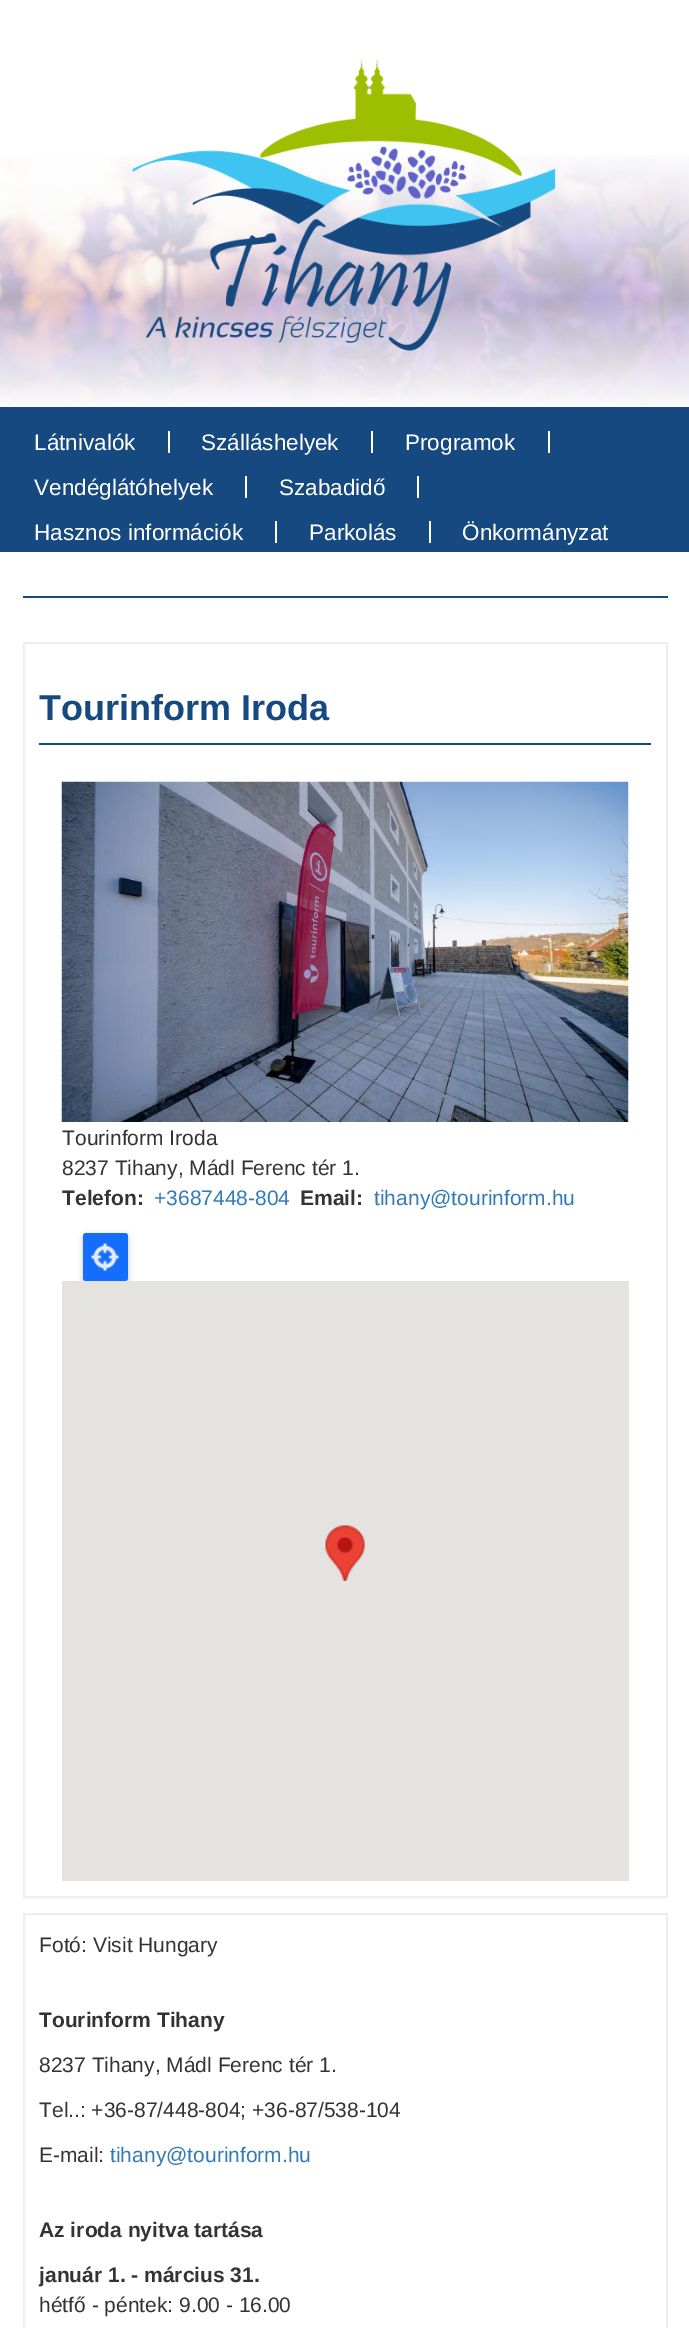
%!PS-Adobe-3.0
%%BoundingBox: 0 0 689 2328
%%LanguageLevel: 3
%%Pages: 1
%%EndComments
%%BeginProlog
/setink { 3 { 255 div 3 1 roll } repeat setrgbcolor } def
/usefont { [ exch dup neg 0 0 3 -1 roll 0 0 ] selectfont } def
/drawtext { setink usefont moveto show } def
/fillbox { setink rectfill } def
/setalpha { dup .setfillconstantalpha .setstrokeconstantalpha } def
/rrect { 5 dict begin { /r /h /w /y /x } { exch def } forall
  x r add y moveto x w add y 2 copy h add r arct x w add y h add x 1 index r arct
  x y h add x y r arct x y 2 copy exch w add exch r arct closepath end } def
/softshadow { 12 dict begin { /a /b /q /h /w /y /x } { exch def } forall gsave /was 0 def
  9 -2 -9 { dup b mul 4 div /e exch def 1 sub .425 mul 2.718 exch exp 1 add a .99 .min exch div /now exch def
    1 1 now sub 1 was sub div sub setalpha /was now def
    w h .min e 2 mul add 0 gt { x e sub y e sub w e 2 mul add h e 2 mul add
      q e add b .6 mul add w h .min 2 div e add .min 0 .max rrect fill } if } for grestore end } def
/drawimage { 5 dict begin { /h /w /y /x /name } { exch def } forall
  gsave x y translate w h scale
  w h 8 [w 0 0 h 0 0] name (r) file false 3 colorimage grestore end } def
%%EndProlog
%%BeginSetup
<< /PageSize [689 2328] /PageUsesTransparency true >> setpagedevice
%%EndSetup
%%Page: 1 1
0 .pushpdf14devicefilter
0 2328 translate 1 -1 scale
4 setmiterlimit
0 0 689 2328 255 255 255 fillbox
(assets/img1.rgb) 0 155 689 252 drawimage
(assets/img2.rgb) 132 59 424 292 drawimage
0 407 689 145 22 73 128 fillbox
168 431 2 22 255 255 255 fillbox
(Látnivalók) 34 450 /LiberationSans-Regular 22.5 255 255 255 drawtext
371 431 2 22 255 255 255 fillbox
(Szálláshelyek) 201 450 /LiberationSans-Regular 22.5 255 255 255 drawtext
548 431 2 22 255 255 255 fillbox
(Programok) 405 450 /LiberationSans-Regular 22.5 255 255 255 drawtext
245 476 2 22 255 255 255 fillbox
(Vendéglátóhelyek) 34 495 /LiberationSans-Regular 22.5 255 255 255 drawtext
417 476 2 22 255 255 255 fillbox
(Szabadidő) 279 495 /LiberationSans-Regular 22.5 255 255 255 drawtext
275 521 2 22 255 255 255 fillbox
(Hasznos információk) 34 540 /LiberationSans-Regular 22.5 255 255 255 drawtext
429 521 2 22 255 255 255 fillbox
(Parkolás) 309 540 /LiberationSans-Regular 22.5 255 255 255 drawtext
(Önkormányzat) 462 540 /LiberationSans-Regular 22.5 255 255 255 drawtext
23 596 645 2 22 73 128 fillbox
238 238 238 setink
2 setlinewidth
24 643 643 1254 rectstroke
39 743 612 2 22 73 128 fillbox
(Tourinform Iroda) 39 720 /LiberationSans-Bold 36 22 73 128 drawtext
(assets/img3.rgb) 61 781 568 341 drawimage
(Tourinform Iroda) 62 1145 /LiberationSans-Regular 21 51 51 51 drawtext
(8237 Tihany, Mádl Ferenc tér 1.) 62 1175 /LiberationSans-Regular 21 51 51 51 drawtext
(Telefon:) 62 1205 /LiberationSans-Bold 21 51 51 51 drawtext
(+3687448-804) 154 1205 /LiberationSans-Regular 21 51 122 183 drawtext
(Email:) 300 1205 /LiberationSans-Bold 21 51 51 51 drawtext
(tihany@tourinform.hu) 374 1205 /LiberationSans-Regular 21 51 122 183 drawtext
0 0 0 setink
83 1235 45 48 3 4 0.12 softshadow
83 1236 45 48 3 1.5 0.14 softshadow
21 109 254 setink
83 1233 45 48 3 rrect fill
(assets/img4.rgb) 91 1243 28 28 drawimage
62 1281 567 600 229 227 223 fillbox
(assets/img5.rgb) 325 1525 40 56 drawimage
238 238 238 setink
24 1914 643 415 rectstroke
(Fotó: Visit Hungary) 39 1952 /LiberationSans-Regular 21 51 51 51 drawtext
(Tourinform Tihany) 39 2027 /LiberationSans-Bold 21 51 51 51 drawtext
(8237 Tihany, Mádl Ferenc tér 1.) 39 2072 /LiberationSans-Regular 21 51 51 51 drawtext
(Tel..: +36-87/448-804; +36-87/538-104) 39 2117 /LiberationSans-Regular 21 51 51 51 drawtext
(E-mail:) 39 2162 /LiberationSans-Regular 21 51 51 51 drawtext
(tihany@tourinform.hu) 110 2162 /LiberationSans-Regular 21 51 122 183 drawtext
(Az iroda nyitva tartása) 39 2237 /LiberationSans-Bold 21 51 51 51 drawtext
(január 1. - március 31.) 39 2282 /LiberationSans-Bold 21 51 51 51 drawtext
(hétfő - péntek: 9.00 - 16.00) 39 2312 /LiberationSans-Regular 21 51 51 51 drawtext
.poppdf14devicefilter showpage
%%EOF
